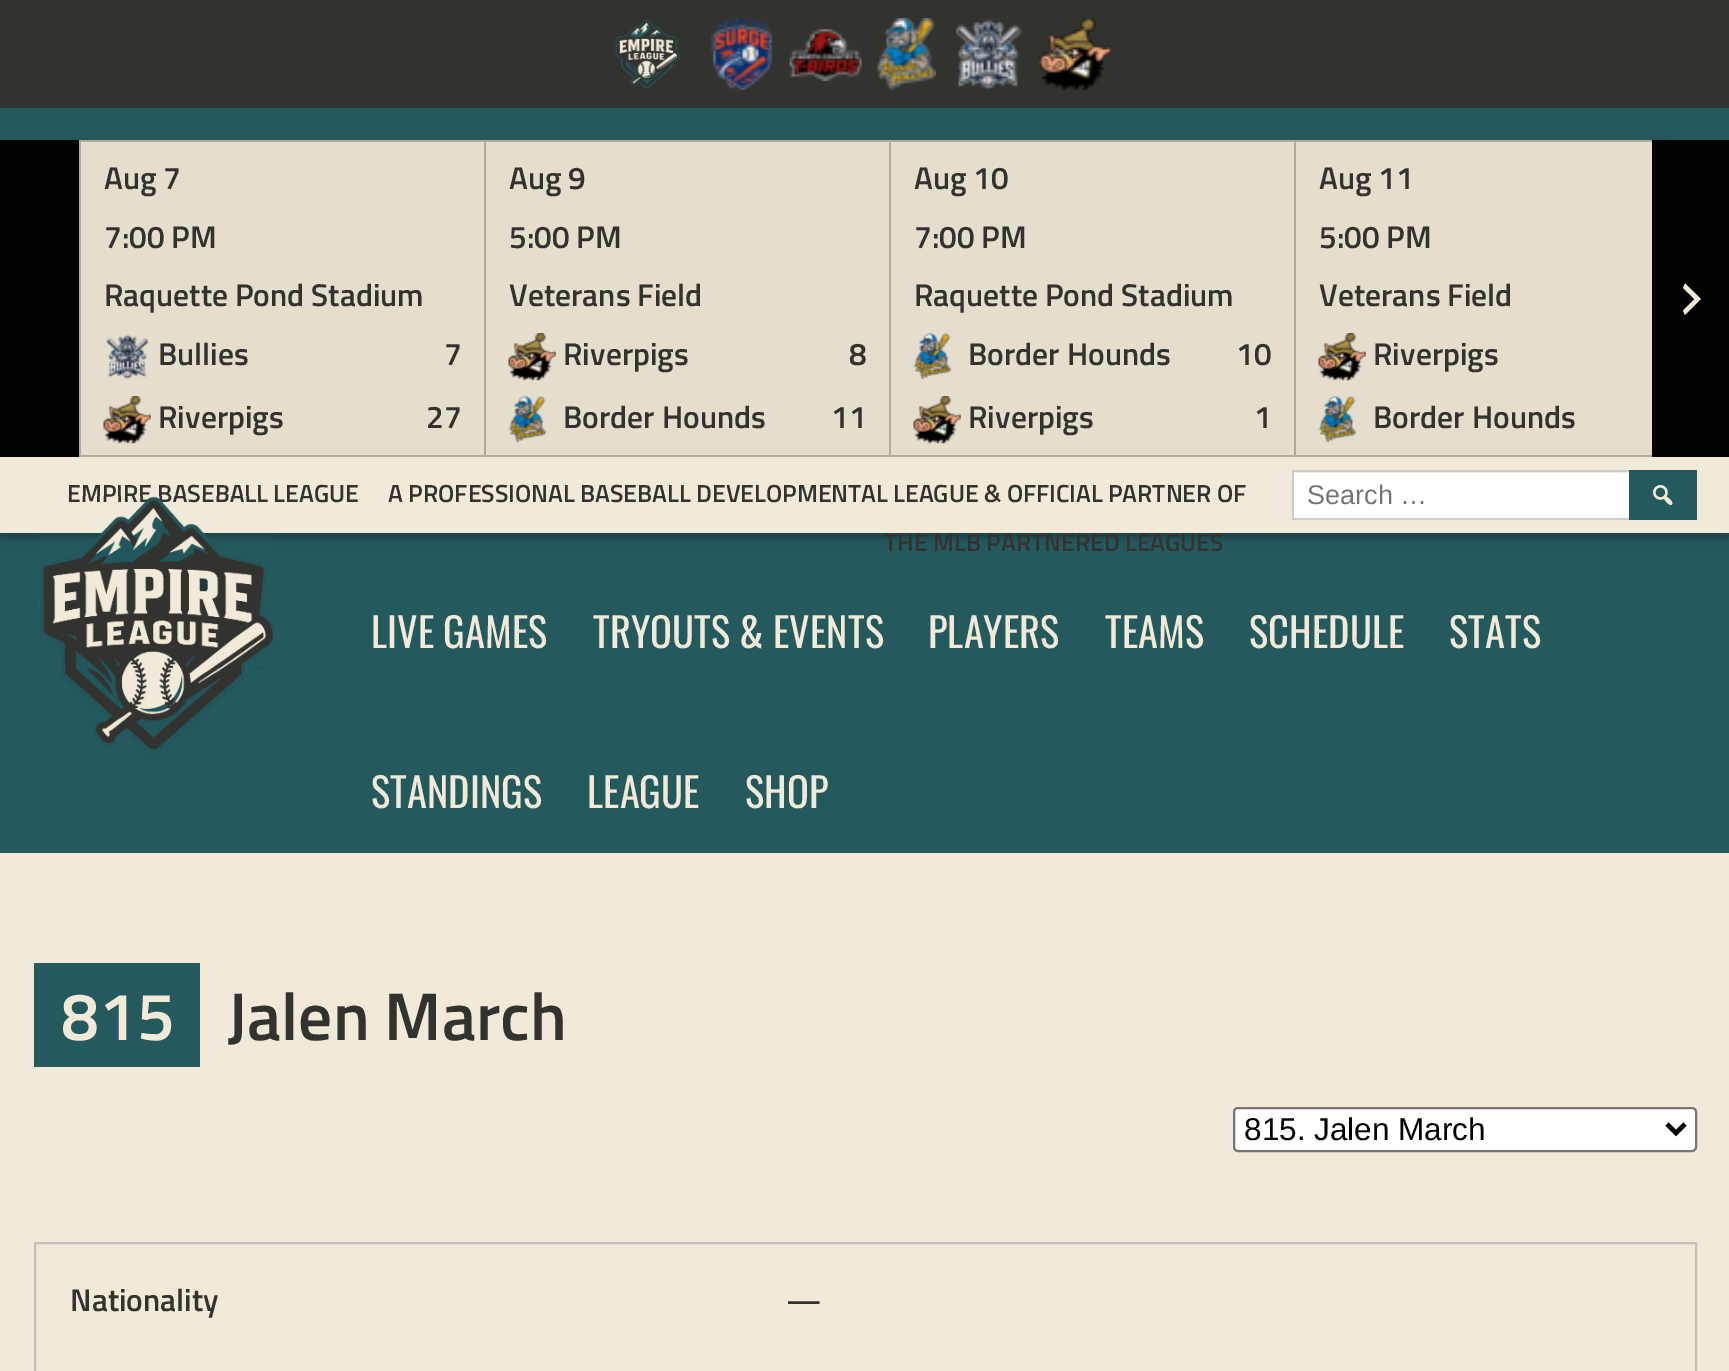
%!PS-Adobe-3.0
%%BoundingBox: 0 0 1729 1371
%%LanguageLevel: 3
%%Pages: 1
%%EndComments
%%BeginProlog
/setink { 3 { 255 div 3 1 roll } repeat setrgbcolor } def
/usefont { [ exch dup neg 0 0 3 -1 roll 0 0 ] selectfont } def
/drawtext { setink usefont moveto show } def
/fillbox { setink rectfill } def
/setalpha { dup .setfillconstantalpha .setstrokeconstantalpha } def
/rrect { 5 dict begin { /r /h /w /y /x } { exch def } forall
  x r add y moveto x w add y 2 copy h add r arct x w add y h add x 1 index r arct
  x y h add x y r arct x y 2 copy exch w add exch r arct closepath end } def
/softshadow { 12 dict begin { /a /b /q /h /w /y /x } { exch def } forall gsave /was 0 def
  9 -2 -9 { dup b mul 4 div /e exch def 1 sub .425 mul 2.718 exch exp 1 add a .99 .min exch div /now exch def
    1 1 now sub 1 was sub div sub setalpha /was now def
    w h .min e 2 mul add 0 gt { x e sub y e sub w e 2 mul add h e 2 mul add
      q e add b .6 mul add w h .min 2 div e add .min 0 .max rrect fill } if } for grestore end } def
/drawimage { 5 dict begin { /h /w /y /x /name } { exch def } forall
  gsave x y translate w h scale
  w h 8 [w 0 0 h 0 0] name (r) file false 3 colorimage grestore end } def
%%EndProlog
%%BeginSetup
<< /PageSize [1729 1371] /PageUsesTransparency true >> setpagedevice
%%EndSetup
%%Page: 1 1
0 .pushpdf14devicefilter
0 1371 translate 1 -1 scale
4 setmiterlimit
0 0 1729 1371 241 234 216 fillbox
0 0 1729 108 50 50 47 fillbox
(assets/img1.rgb) 615 19 66 70 drawimage
(assets/img2.rgb) 711 18 62 72 drawimage
(assets/img3.rgb) 789 29 73 52 drawimage
(assets/img4.rgb) 877 18 59 72 drawimage
(assets/img5.rgb) 955 19 67 71 drawimage
(assets/img6.rgb) 1039 18 73 72 drawimage
0 108 1729 745 36 89 93 fillbox
0 0 0 setink
0 144 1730 394 0 3.5 0.25 softshadow
0 457 1729 76 241 234 216 fillbox
0 140 1729 317 0 0 0 fillbox
79 140 1573 2 178 171 153 fillbox
79 455 1573 2 178 171 153 fillbox
79 140 2 317 178 171 153 fillbox
81 142 1571 313 229 222 204 fillbox
(Aug 7) 104 189 /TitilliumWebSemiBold-SemiBold 31.5 50 50 47 drawtext
(7:00 PM) 104 248 /TitilliumWebSemiBold-SemiBold 31.5 50 50 47 drawtext
(Raquette Pond Stadium) 104 306 /TitilliumWebSemiBold-SemiBold 31.5 50 50 47 drawtext
(assets/img7.rgb) 106 334 43 45 drawimage
(Bullies) 158 365 /TitilliumWebSemiBold-SemiBold 31.5 50 50 47 drawtext
(7) 444 365 /TitilliumWebSemiBold-SemiBold 31.5 50 50 47 drawtext
(assets/img8.rgb) 103 396 48 48 drawimage
(Riverpigs) 158 428 /TitilliumWebSemiBold-SemiBold 31.5 50 50 47 drawtext
(27) 426 428 /TitilliumWebSemiBold-SemiBold 31.5 50 50 47 drawtext
484 140 2 317 178 171 153 fillbox
(Aug 9) 509 189 /TitilliumWebSemiBold-SemiBold 31.5 50 50 47 drawtext
(5:00 PM) 509 248 /TitilliumWebSemiBold-SemiBold 31.5 50 50 47 drawtext
(Veterans Field) 509 306 /TitilliumWebSemiBold-SemiBold 31.5 50 50 47 drawtext
(assets/img8.rgb) 508 333 48 48 drawimage
(Riverpigs) 563 365 /TitilliumWebSemiBold-SemiBold 31.5 50 50 47 drawtext
(8) 849 365 /TitilliumWebSemiBold-SemiBold 31.5 50 50 47 drawtext
(assets/img9.rgb) 508 396 39 47 drawimage
(Border Hounds) 563 428 /TitilliumWebSemiBold-SemiBold 31.5 50 50 47 drawtext
(11) 831 428 /TitilliumWebSemiBold-SemiBold 31.5 50 50 47 drawtext
889 140 2 317 178 171 153 fillbox
(Aug 10) 914 189 /TitilliumWebSemiBold-SemiBold 31.5 50 50 47 drawtext
(7:00 PM) 914 248 /TitilliumWebSemiBold-SemiBold 31.5 50 50 47 drawtext
(Raquette Pond Stadium) 914 306 /TitilliumWebSemiBold-SemiBold 31.5 50 50 47 drawtext
(assets/img9.rgb) 913 333 39 47 drawimage
(Border Hounds) 968 365 /TitilliumWebSemiBold-SemiBold 31.5 50 50 47 drawtext
(10) 1236 365 /TitilliumWebSemiBold-SemiBold 31.5 50 50 47 drawtext
(assets/img8.rgb) 913 396 48 48 drawimage
(Riverpigs) 968 428 /TitilliumWebSemiBold-SemiBold 31.5 50 50 47 drawtext
(1) 1254 428 /TitilliumWebSemiBold-SemiBold 31.5 50 50 47 drawtext
1294 140 2 317 178 171 153 fillbox
(Aug 11) 1319 189 /TitilliumWebSemiBold-SemiBold 31.5 50 50 47 drawtext
(5:00 PM) 1319 248 /TitilliumWebSemiBold-SemiBold 31.5 50 50 47 drawtext
(Veterans Field) 1319 306 /TitilliumWebSemiBold-SemiBold 31.5 50 50 47 drawtext
(assets/img8.rgb) 1318 333 48 48 drawimage
(Riverpigs) 1373 365 /TitilliumWebSemiBold-SemiBold 31.5 50 50 47 drawtext
(assets/img9.rgb) 1318 396 39 47 drawimage
(Border Hounds) 1373 428 /TitilliumWebSemiBold-SemiBold 31.5 50 50 47 drawtext
241 234 216 setink
1683 310.5 moveto 1694.5 299 lineto 1683 288 lineto 1685 283.5 lineto 1701 299 lineto 1685 315 lineto closepath fill
(EMPIRE BASEBALL LEAGUE) 67 502 /TitilliumWebSemiBold-SemiBold 24.75 50 50 47 drawtext
(A PROFESSIONAL BASEBALL DEVELOPMENTAL LEAGUE & OFFICIAL PARTNER OF) 388 502 /TitilliumWebSemiBold-SemiBold 24.75 50 50 47 drawtext
(THE MLB PARTNERED LEAGUES) 884 551 /TitilliumWebSemiBold-SemiBold 24.75 50 50 47 drawtext
(assets/img10.rgb) 39 496 234 258 drawimage
1294 473 335 45 255 255 255 fillbox
1292 470 337 2 204 204 204 fillbox
1292 518 337 2 204 204 204 fillbox
1292 470 2 50 204 204 204 fillbox
(Search …) 1307 504 /LiberationSans-Regular 27 117 117 117 drawtext
1629 470 68 50 36 89 93 fillbox
(assets/img11.rgb) 1653 485 20 20 drawimage
(LIVE GAMES) 371 648 /Oswald-Regular 40.5 241 234 216 drawtext
(TRYOUTS & EVENTS) 593 648 /Oswald-Regular 40.5 241 234 216 drawtext
(PLAYERS) 928 648 /Oswald-Regular 40.5 241 234 216 drawtext
(TEAMS) 1105 648 /Oswald-Regular 40.5 241 234 216 drawtext
(SCHEDULE) 1249 648 /Oswald-Regular 40.5 241 234 216 drawtext
(STATS) 1449 648 /Oswald-Regular 40.5 241 234 216 drawtext
(STANDINGS) 371 808 /Oswald-Regular 40.5 241 234 216 drawtext
(LEAGUE) 587 808 /Oswald-Regular 40.5 241 234 216 drawtext
(SHOP) 745 808 /Oswald-Regular 40.5 241 234 216 drawtext
34 963 166 104 36 89 93 fillbox
(815) 61 1040 /TitilliumWebSemiBold-SemiBold 67.5 241 234 216 drawtext
(Jalen March) 227 1040 /TitilliumWebSemiBold-SemiBold 67.5 50 50 47 drawtext
255 255 255 setink
1234 1108 462 43 4 rrect gsave fill grestore
118 118 118 setink
2 setlinewidth
stroke
0 0 0 setink
4.5 setlinewidth
1667 1124 moveto 1676 1133 lineto 1685 1124 lineto stroke
(815. Jalen March) 1244 1140 /LiberationSans-Regular 31.5 0 0 0 drawtext
192 192 192 setink
2 setlinewidth
35 1243 1661 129 rectstroke
(Nationality) 70 1311 /TitilliumWebSemiBold-SemiBold 31.5 50 50 47 drawtext
(—) 786 1311 /TitilliumWebSemiBold-SemiBold 31.5 50 50 47 drawtext
.poppdf14devicefilter showpage
%%EOF
